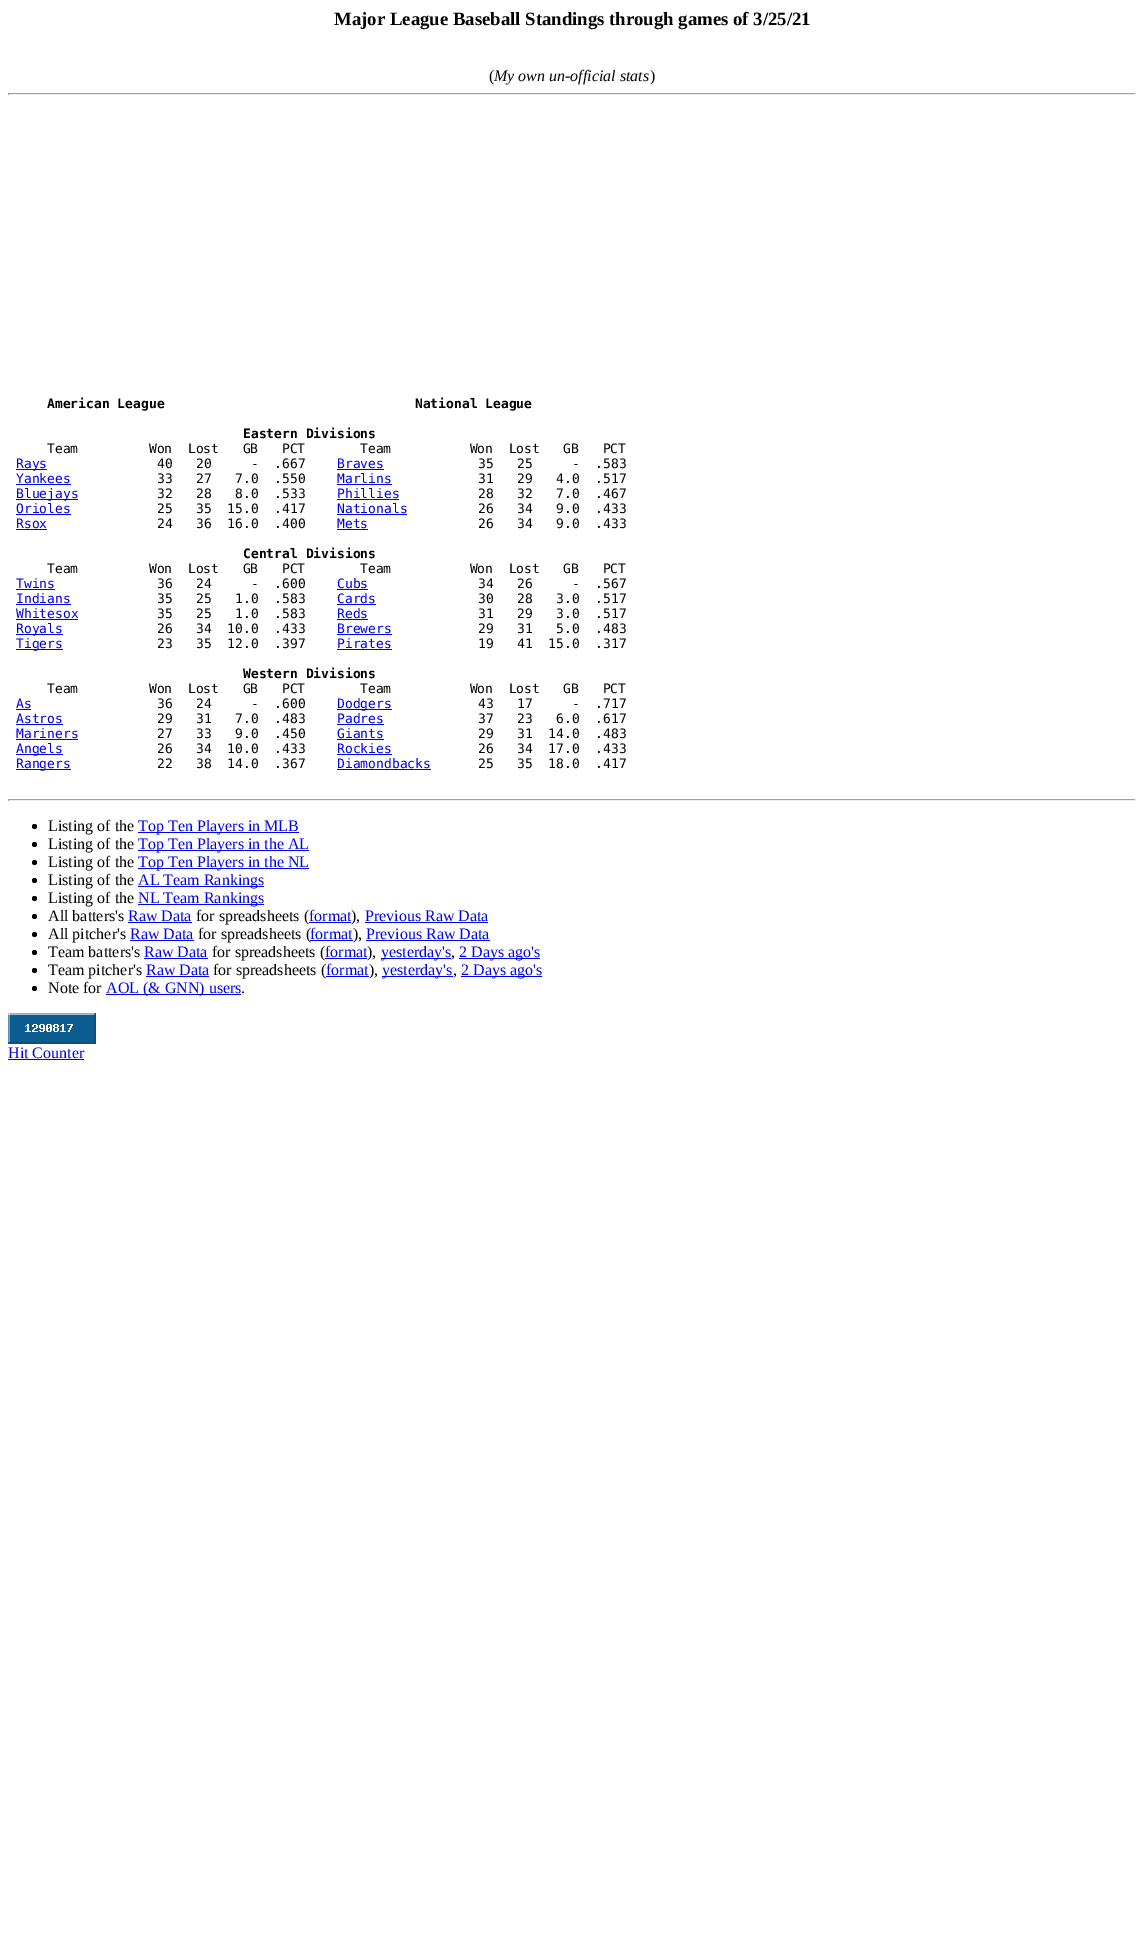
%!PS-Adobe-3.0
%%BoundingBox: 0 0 1144 1947
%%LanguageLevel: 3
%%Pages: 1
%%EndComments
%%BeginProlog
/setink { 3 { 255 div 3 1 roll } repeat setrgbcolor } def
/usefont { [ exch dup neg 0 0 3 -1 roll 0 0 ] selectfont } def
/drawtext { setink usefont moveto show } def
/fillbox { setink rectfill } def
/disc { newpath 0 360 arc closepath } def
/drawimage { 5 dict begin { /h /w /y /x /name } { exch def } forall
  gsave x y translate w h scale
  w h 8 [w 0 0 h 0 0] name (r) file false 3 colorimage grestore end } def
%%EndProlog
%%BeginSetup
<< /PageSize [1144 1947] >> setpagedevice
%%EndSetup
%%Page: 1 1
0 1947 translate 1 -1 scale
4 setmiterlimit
0 0 1144 1947 255 255 255 fillbox
(Major League Baseball Standings through games of 3/25/21) 334 25 /LiberationSerif-Bold 18.75 0 0 0 drawtext
(\() 489 81 /LiberationSerif-Regular 16 0 0 0 drawtext
(My own un-official stats) 494 81 /LiberationSerif-Italic 16 0 0 0 drawtext
(\)) 650 81 /LiberationSerif-Regular 16 0 0 0 drawtext
8 93 1128 1 159 159 159 fillbox
1135 93 1 2 238 238 238 fillbox
8 94 1128 1 238 238 238 fillbox
8 93 1 2 159 159 159 fillbox
(American League                                National League) 47 408 /DejaVuSansMono-Bold 13 0 0 0 drawtext
(Eastern Divisions) 243 438 /DejaVuSansMono-Bold 13 0 0 0 drawtext
(Team         Won  Lost   GB   PCT       Team          Won  Lost   GB   PCT) 47 453 /DejaVuSansMono-Regular 13 0 0 0 drawtext
16 469 31 1 0 0 238 fillbox
(Rays) 16 468 /DejaVuSansMono-Regular 13 0 0 238 drawtext
(40   20     -  .667) 157 468 /DejaVuSansMono-Regular 13 0 0 0 drawtext
(Braves) 337 468 /DejaVuSansMono-Regular 13 0 0 238 drawtext
337 469 47 1 0 0 238 fillbox
(35   25     -  .583) 478 468 /DejaVuSansMono-Regular 13 0 0 0 drawtext
(Yankees) 16 483 /DejaVuSansMono-Regular 13 0 0 238 drawtext
16 484 55 1 0 0 238 fillbox
(33   27   7.0  .550) 157 483 /DejaVuSansMono-Regular 13 0 0 0 drawtext
(Marlins) 337 483 /DejaVuSansMono-Regular 13 0 0 238 drawtext
337 484 55 1 0 0 238 fillbox
(31   29   4.0  .517) 478 483 /DejaVuSansMono-Regular 13 0 0 0 drawtext
16 499 62 1 0 0 238 fillbox
(Bluejays) 16 498 /DejaVuSansMono-Regular 13 0 0 238 drawtext
(32   28   8.0  .533) 157 498 /DejaVuSansMono-Regular 13 0 0 0 drawtext
(Phillies) 337 498 /DejaVuSansMono-Regular 13 0 0 238 drawtext
337 499 62 1 0 0 238 fillbox
(28   32   7.0  .467) 478 498 /DejaVuSansMono-Regular 13 0 0 0 drawtext
(Orioles) 16 513 /DejaVuSansMono-Regular 13 0 0 238 drawtext
16 514 55 1 0 0 238 fillbox
(25   35  15.0  .417) 157 513 /DejaVuSansMono-Regular 13 0 0 0 drawtext
(Nationals) 337 513 /DejaVuSansMono-Regular 13 0 0 238 drawtext
337 514 70 1 0 0 238 fillbox
(26   34   9.0  .433) 478 513 /DejaVuSansMono-Regular 13 0 0 0 drawtext
(Rsox) 16 528 /DejaVuSansMono-Regular 13 0 0 238 drawtext
16 529 31 1 0 0 238 fillbox
(24   36  16.0  .400) 157 528 /DejaVuSansMono-Regular 13 0 0 0 drawtext
(Mets) 337 528 /DejaVuSansMono-Regular 13 0 0 238 drawtext
337 529 31 1 0 0 238 fillbox
(26   34   9.0  .433) 478 528 /DejaVuSansMono-Regular 13 0 0 0 drawtext
(Central Divisions) 243 558 /DejaVuSansMono-Bold 13 0 0 0 drawtext
(Team         Won  Lost   GB   PCT       Team          Won  Lost   GB   PCT) 47 573 /DejaVuSansMono-Regular 13 0 0 0 drawtext
(Twins) 16 588 /DejaVuSansMono-Regular 13 0 0 238 drawtext
16 589 39 1 0 0 238 fillbox
(36   24     -  .600) 157 588 /DejaVuSansMono-Regular 13 0 0 0 drawtext
(Cubs) 337 588 /DejaVuSansMono-Regular 13 0 0 238 drawtext
337 589 31 1 0 0 238 fillbox
(34   26     -  .567) 478 588 /DejaVuSansMono-Regular 13 0 0 0 drawtext
(Indians) 16 603 /DejaVuSansMono-Regular 13 0 0 238 drawtext
16 604 55 1 0 0 238 fillbox
(35   25   1.0  .583) 157 603 /DejaVuSansMono-Regular 13 0 0 0 drawtext
(Cards) 337 603 /DejaVuSansMono-Regular 13 0 0 238 drawtext
337 604 39 1 0 0 238 fillbox
(30   28   3.0  .517) 478 603 /DejaVuSansMono-Regular 13 0 0 0 drawtext
(Whitesox) 16 618 /DejaVuSansMono-Regular 13 0 0 238 drawtext
16 619 62 1 0 0 238 fillbox
(35   25   1.0  .583) 157 618 /DejaVuSansMono-Regular 13 0 0 0 drawtext
(Reds) 337 618 /DejaVuSansMono-Regular 13 0 0 238 drawtext
337 619 31 1 0 0 238 fillbox
(31   29   3.0  .517) 478 618 /DejaVuSansMono-Regular 13 0 0 0 drawtext
16 634 47 1 0 0 238 fillbox
(Royals) 16 633 /DejaVuSansMono-Regular 13 0 0 238 drawtext
(26   34  10.0  .433) 157 633 /DejaVuSansMono-Regular 13 0 0 0 drawtext
(Brewers) 337 633 /DejaVuSansMono-Regular 13 0 0 238 drawtext
337 634 55 1 0 0 238 fillbox
(29   31   5.0  .483) 478 633 /DejaVuSansMono-Regular 13 0 0 0 drawtext
16 649 47 1 0 0 238 fillbox
(Tigers) 16 648 /DejaVuSansMono-Regular 13 0 0 238 drawtext
(23   35  12.0  .397) 157 648 /DejaVuSansMono-Regular 13 0 0 0 drawtext
(Pirates) 337 648 /DejaVuSansMono-Regular 13 0 0 238 drawtext
337 649 55 1 0 0 238 fillbox
(19   41  15.0  .317) 478 648 /DejaVuSansMono-Regular 13 0 0 0 drawtext
(Western Divisions) 243 678 /DejaVuSansMono-Bold 13 0 0 0 drawtext
(Team         Won  Lost   GB   PCT       Team          Won  Lost   GB   PCT) 47 693 /DejaVuSansMono-Regular 13 0 0 0 drawtext
(As) 16 708 /DejaVuSansMono-Regular 13 0 0 238 drawtext
16 709 15 1 0 0 238 fillbox
(36   24     -  .600) 157 708 /DejaVuSansMono-Regular 13 0 0 0 drawtext
337 709 55 1 0 0 238 fillbox
(Dodgers) 337 708 /DejaVuSansMono-Regular 13 0 0 238 drawtext
(43   17     -  .717) 478 708 /DejaVuSansMono-Regular 13 0 0 0 drawtext
(Astros) 16 723 /DejaVuSansMono-Regular 13 0 0 238 drawtext
16 724 47 1 0 0 238 fillbox
(29   31   7.0  .483) 157 723 /DejaVuSansMono-Regular 13 0 0 0 drawtext
(Padres) 337 723 /DejaVuSansMono-Regular 13 0 0 238 drawtext
337 724 47 1 0 0 238 fillbox
(37   23   6.0  .617) 478 723 /DejaVuSansMono-Regular 13 0 0 0 drawtext
(Mariners) 16 738 /DejaVuSansMono-Regular 13 0 0 238 drawtext
16 739 62 1 0 0 238 fillbox
(27   33   9.0  .450) 157 738 /DejaVuSansMono-Regular 13 0 0 0 drawtext
(Giants) 337 738 /DejaVuSansMono-Regular 13 0 0 238 drawtext
337 739 47 1 0 0 238 fillbox
(29   31  14.0  .483) 478 738 /DejaVuSansMono-Regular 13 0 0 0 drawtext
16 754 47 1 0 0 238 fillbox
(Angels) 16 753 /DejaVuSansMono-Regular 13 0 0 238 drawtext
(26   34  10.0  .433) 157 753 /DejaVuSansMono-Regular 13 0 0 0 drawtext
(Rockies) 337 753 /DejaVuSansMono-Regular 13 0 0 238 drawtext
337 754 55 1 0 0 238 fillbox
(26   34  17.0  .433) 478 753 /DejaVuSansMono-Regular 13 0 0 0 drawtext
16 769 55 1 0 0 238 fillbox
(Rangers) 16 768 /DejaVuSansMono-Regular 13 0 0 238 drawtext
(22   38  14.0  .367) 157 768 /DejaVuSansMono-Regular 13 0 0 0 drawtext
(Diamondbacks) 337 768 /DejaVuSansMono-Regular 13 0 0 238 drawtext
337 769 94 1 0 0 238 fillbox
(25   35  18.0  .417) 478 768 /DejaVuSansMono-Regular 13 0 0 0 drawtext
8 799 1128 1 159 159 159 fillbox
1135 799 1 2 238 238 238 fillbox
8 800 1128 1 238 238 238 fillbox
8 799 1 2 159 159 159 fillbox
0 0 0 setink
34.5 826.5 2.5 disc fill
(Listing of the) 48 831 /LiberationSerif-Regular 16 0 0 0 drawtext
138 832 161 1 0 0 238 fillbox
(Top Ten Players in MLB) 138 831 /LiberationSerif-Regular 16 0 0 238 drawtext
0 0 0 setink
34.5 844.5 2.5 disc fill
(Listing of the) 48 849 /LiberationSerif-Regular 16 0 0 0 drawtext
138 850 171 1 0 0 238 fillbox
(Top Ten Players in the AL) 138 849 /LiberationSerif-Regular 16 0 0 238 drawtext
0 0 0 setink
34.5 862.5 2.5 disc fill
(Listing of the) 48 867 /LiberationSerif-Regular 16 0 0 0 drawtext
138 868 171 1 0 0 238 fillbox
(Top Ten Players in the NL) 138 867 /LiberationSerif-Regular 16 0 0 238 drawtext
0 0 0 setink
34.5 880.5 2.5 disc fill
(Listing of the) 48 885 /LiberationSerif-Regular 16 0 0 0 drawtext
138 886 126 1 0 0 238 fillbox
(AL Team Rankings) 138 885 /LiberationSerif-Regular 16 0 0 238 drawtext
0 0 0 setink
34.5 898.5 2.5 disc fill
(Listing of the) 48 903 /LiberationSerif-Regular 16 0 0 0 drawtext
138 904 126 1 0 0 238 fillbox
(NL Team Rankings) 138 903 /LiberationSerif-Regular 16 0 0 238 drawtext
0 0 0 setink
34.5 916.5 2.5 disc fill
(All batters's) 48 921 /LiberationSerif-Regular 16 0 0 0 drawtext
(Raw Data) 128 921 /LiberationSerif-Regular 16 0 0 238 drawtext
128 922 64 1 0 0 238 fillbox
(for spreadsheets \() 196 921 /LiberationSerif-Regular 16 0 0 0 drawtext
(format) 309 921 /LiberationSerif-Regular 16 0 0 238 drawtext
309 922 42 1 0 0 238 fillbox
(\),) 351 921 /LiberationSerif-Regular 16 0 0 0 drawtext
(Previous Raw Data) 365 921 /LiberationSerif-Regular 16 0 0 238 drawtext
365 922 123 1 0 0 238 fillbox
0 0 0 setink
34.5 934.5 2.5 disc fill
(All pitcher's) 48 939 /LiberationSerif-Regular 16 0 0 0 drawtext
(Raw Data) 130 939 /LiberationSerif-Regular 16 0 0 238 drawtext
130 940 64 1 0 0 238 fillbox
(for spreadsheets \() 198 939 /LiberationSerif-Regular 16 0 0 0 drawtext
(format) 310 939 /LiberationSerif-Regular 16 0 0 238 drawtext
310 940 43 1 0 0 238 fillbox
(\),) 353 939 /LiberationSerif-Regular 16 0 0 0 drawtext
(Previous Raw Data) 366 939 /LiberationSerif-Regular 16 0 0 238 drawtext
366 940 124 1 0 0 238 fillbox
0 0 0 setink
34.5 952.5 2.5 disc fill
(Team batters's) 48 957 /LiberationSerif-Regular 16 0 0 0 drawtext
(Raw Data) 144 957 /LiberationSerif-Regular 16 0 0 238 drawtext
144 958 64 1 0 0 238 fillbox
(for spreadsheets \() 212 957 /LiberationSerif-Regular 16 0 0 0 drawtext
(format) 325 957 /LiberationSerif-Regular 16 0 0 238 drawtext
325 958 42 1 0 0 238 fillbox
(\),) 367 957 /LiberationSerif-Regular 16 0 0 0 drawtext
381 958 70 1 0 0 238 fillbox
(yesterday's) 381 957 /LiberationSerif-Regular 16 0 0 238 drawtext
459 958 81 1 0 0 238 fillbox
(2 Days ago's) 459 957 /LiberationSerif-Regular 16 0 0 238 drawtext
(,) 451 957 /LiberationSerif-Regular 16 0 0 0 drawtext
34.5 970.5 2.5 disc fill
(Team pitcher's) 48 975 /LiberationSerif-Regular 16 0 0 0 drawtext
(Raw Data) 146 975 /LiberationSerif-Regular 16 0 0 238 drawtext
146 976 63 1 0 0 238 fillbox
(for spreadsheets \() 213 975 /LiberationSerif-Regular 16 0 0 0 drawtext
(format) 326 975 /LiberationSerif-Regular 16 0 0 238 drawtext
326 976 43 1 0 0 238 fillbox
(\),) 369 975 /LiberationSerif-Regular 16 0 0 0 drawtext
382 976 71 1 0 0 238 fillbox
(yesterday's) 382 975 /LiberationSerif-Regular 16 0 0 238 drawtext
461 976 81 1 0 0 238 fillbox
(2 Days ago's) 461 975 /LiberationSerif-Regular 16 0 0 238 drawtext
(,) 453 975 /LiberationSerif-Regular 16 0 0 0 drawtext
34.5 988.5 2.5 disc fill
(Note for) 48 993 /LiberationSerif-Regular 16 0 0 0 drawtext
106 994 135 1 0 0 238 fillbox
(AOL \(& GNN\) users) 106 993 /LiberationSerif-Regular 16 0 0 238 drawtext
(.) 241 993 /LiberationSerif-Regular 16 0 0 0 drawtext
(assets/img1.rgb) 8 1013 88 31 drawimage
(Hit Counter) 8 1058 /LiberationSerif-Regular 16 0 0 238 drawtext
8 1059 76 1 0 0 238 fillbox
showpage
%%EOF
